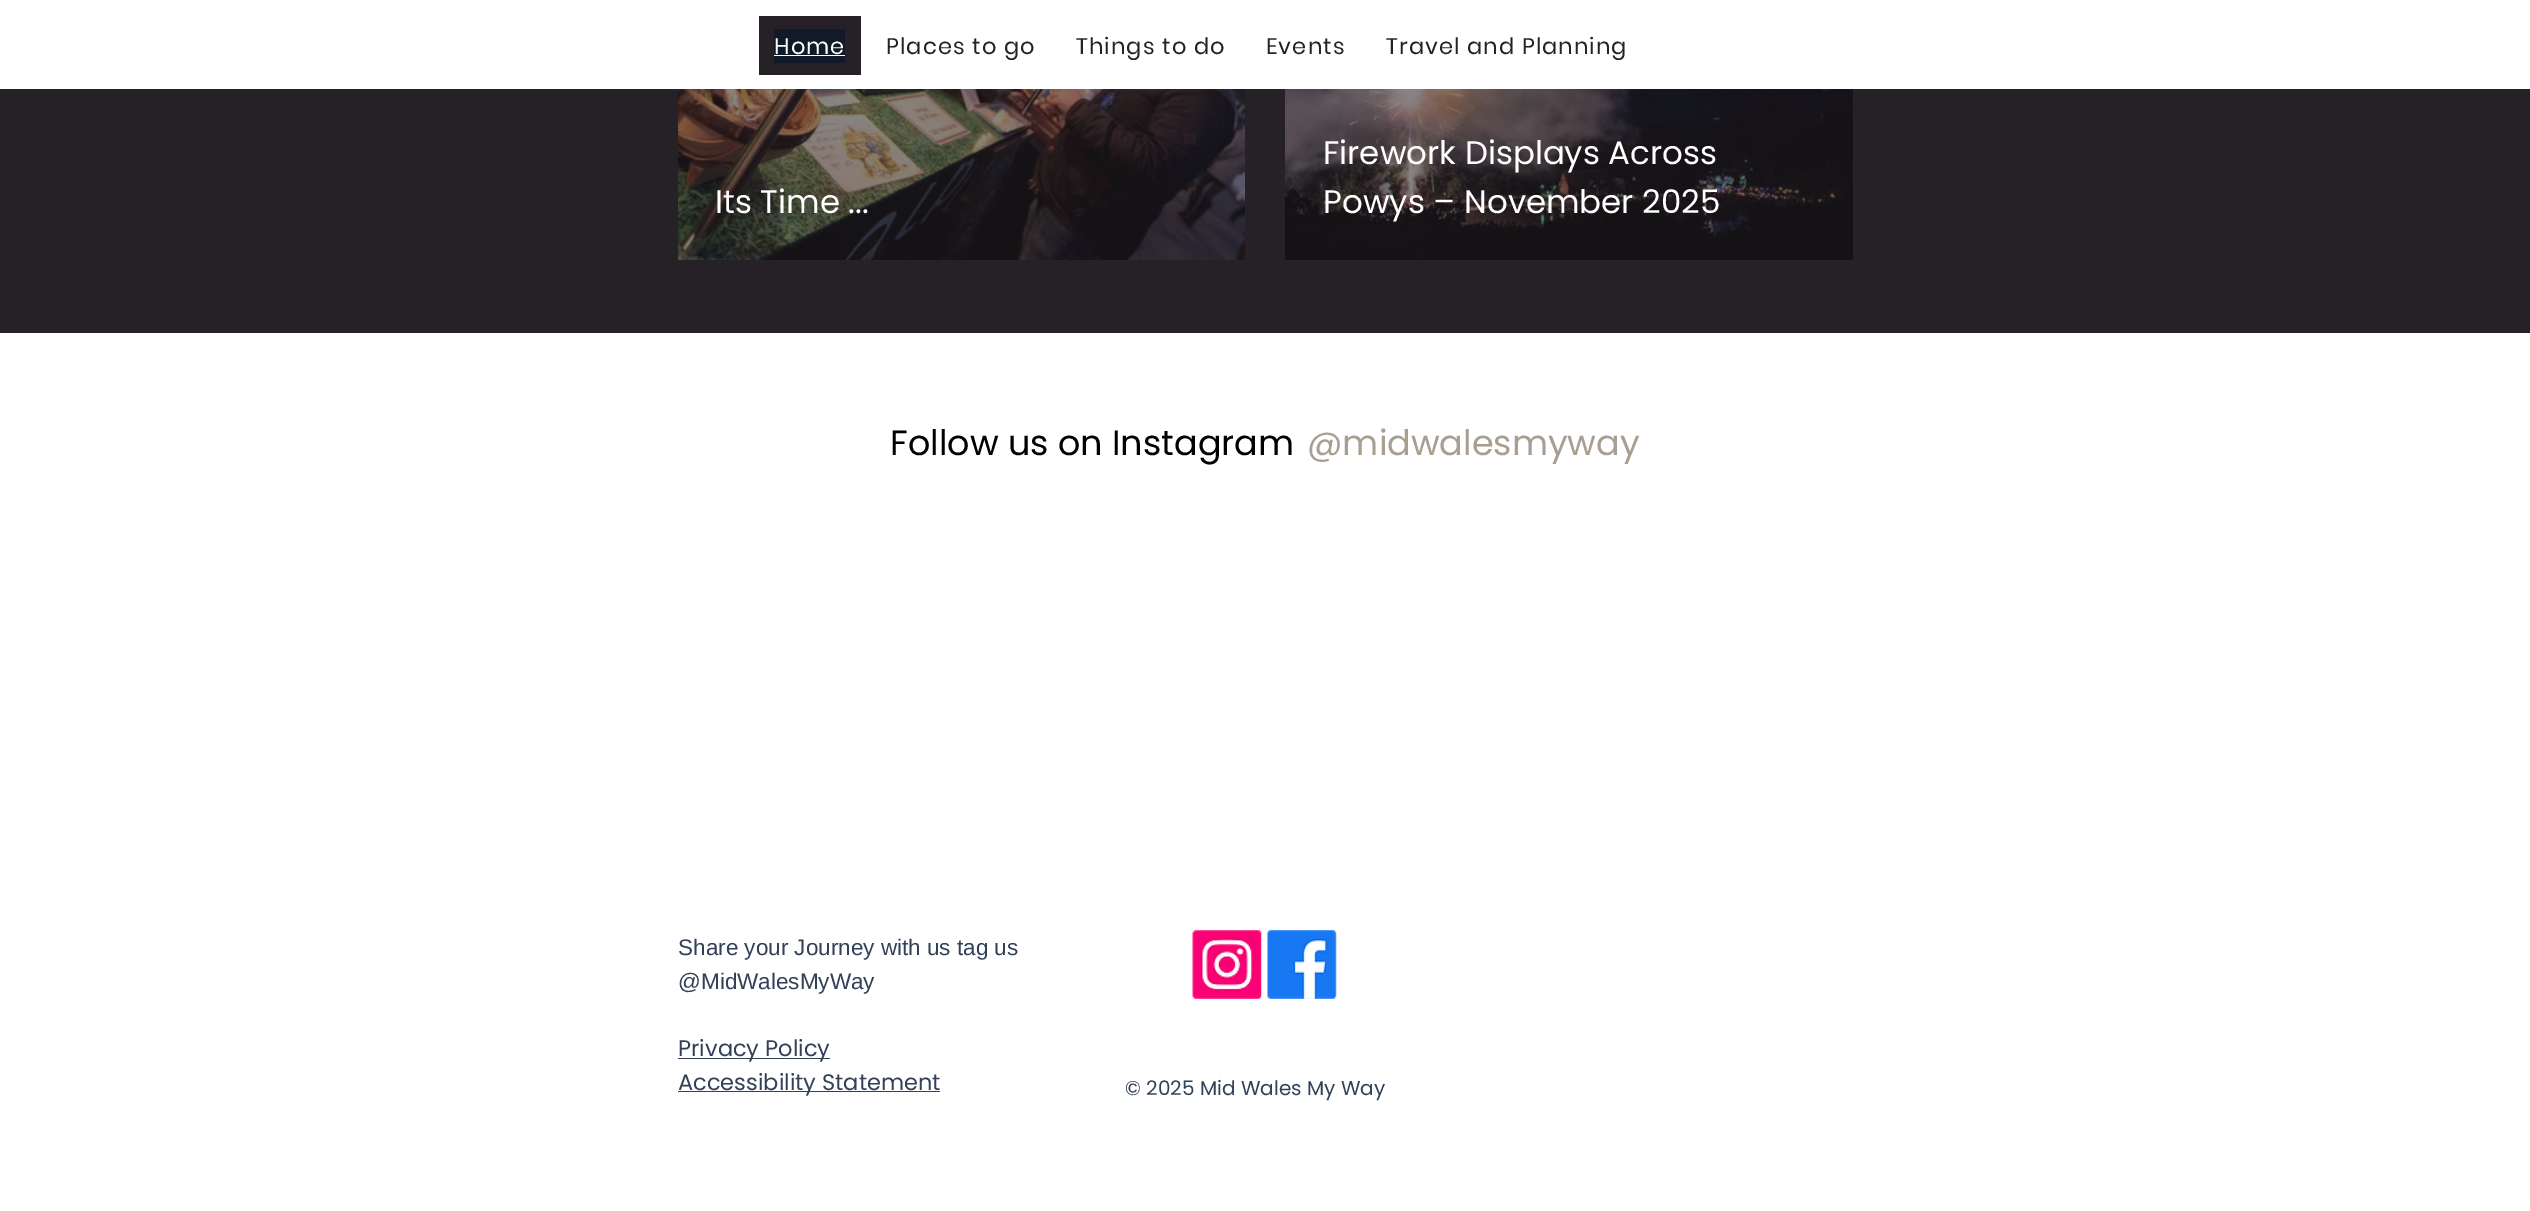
%!PS-Adobe-3.0
%%BoundingBox: 0 0 2530 1211
%%LanguageLevel: 3
%%Pages: 1
%%EndComments
%%BeginProlog
/setink { 3 { 255 div 3 1 roll } repeat setrgbcolor } def
/usefont { [ exch dup neg 0 0 3 -1 roll 0 0 ] selectfont } def
/drawtext { setink usefont moveto show } def
/fillbox { setink rectfill } def
/drawimage { 5 dict begin { /h /w /y /x /name } { exch def } forall
  gsave x y translate w h scale
  w h 8 [w 0 0 h 0 0] name (r) file false 3 colorimage grestore end } def
%%EndProlog
%%BeginSetup
<< /PageSize [2530 1211] >> setpagedevice
%%EndSetup
%%Page: 1 1
0 1211 translate 1 -1 scale
4 setmiterlimit
0 0 2530 1211 255 255 255 fillbox
759 16 102 59 38 32 39 fillbox
774 29 71 34 17 26 40 fillbox
/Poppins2-Regular 22.5 usefont
255 255 255 setink
774 54 moveto 1.1 0 (Home) ashow
774 55 71 1 255 255 255 fillbox
38 32 39 setink
886 54 moveto 1.1 0 (Places to go) ashow
1076 54 moveto 1.1 0 (Things to do) ashow
1266 54 moveto 1.1 0 (Events) ashow
1386 54 moveto 1.1 0 (Travel and Planning) ashow
0 89 2530 244 38 32 39 fillbox
(assets/img1.rgb) 678 89 567 171 drawimage
(Its Time ...) 715 213 /Poppins-Regular 32.5 255 255 255 drawtext
(assets/img2.rgb) 1285 89 568 171 drawimage
(Firework Displays Across) 1323 164 /Poppins-Regular 32.5 255 255 255 drawtext
(Powys – November 2025) 1323 213 /Poppins-Regular 32.5 255 255 255 drawtext
(Follow us on Instagram) 890 455 /Poppins-Regular 35 0 0 0 drawtext
(@midwalesmyway) 1307 455 /Poppins-Regular 35 168 158 145 drawtext
(Share your Journey with us tag us) 678 955 /LiberationSans-Regular 22.5 50 65 88 drawtext
(@MidWalesMyWay) 678 989 /LiberationSans-Regular 22.5 50 65 88 drawtext
678 1058 152 1 50 65 88 fillbox
(Privacy Policy) 678 1056 /Poppins-Regular 22.5 50 65 88 drawtext
678 1091 262 1 50 65 88 fillbox
(Accessibility Statement) 678 1090 /Poppins-Regular 22.5 50 65 88 drawtext
(assets/img3.rgb) 1192 930 70 69 drawimage
(assets/img4.rgb) 1267 930 70 69 drawimage
(© 2025 Mid Wales My Way) 1125 1095 /Poppins-Regular 20 50 65 88 drawtext
showpage
%%EOF
